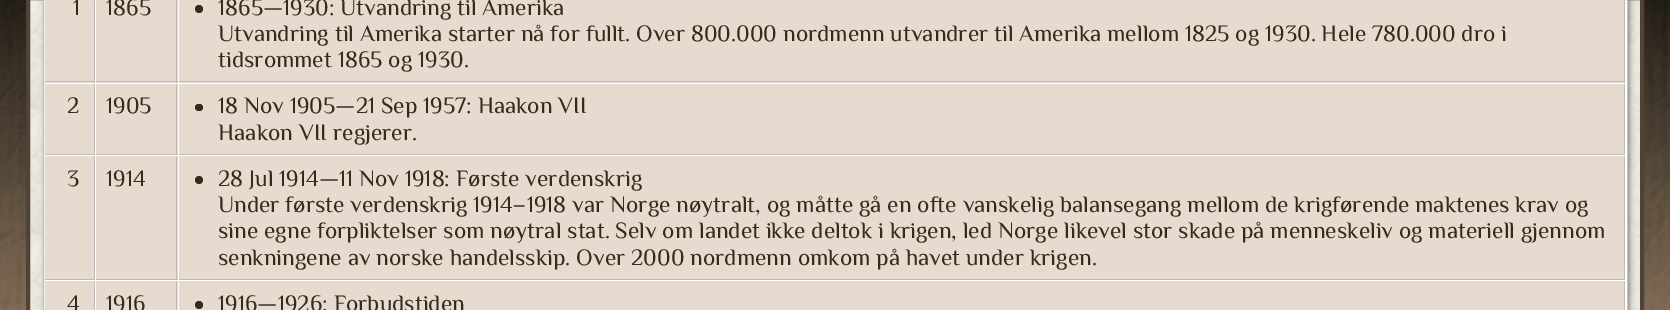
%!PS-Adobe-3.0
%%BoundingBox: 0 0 1670 310
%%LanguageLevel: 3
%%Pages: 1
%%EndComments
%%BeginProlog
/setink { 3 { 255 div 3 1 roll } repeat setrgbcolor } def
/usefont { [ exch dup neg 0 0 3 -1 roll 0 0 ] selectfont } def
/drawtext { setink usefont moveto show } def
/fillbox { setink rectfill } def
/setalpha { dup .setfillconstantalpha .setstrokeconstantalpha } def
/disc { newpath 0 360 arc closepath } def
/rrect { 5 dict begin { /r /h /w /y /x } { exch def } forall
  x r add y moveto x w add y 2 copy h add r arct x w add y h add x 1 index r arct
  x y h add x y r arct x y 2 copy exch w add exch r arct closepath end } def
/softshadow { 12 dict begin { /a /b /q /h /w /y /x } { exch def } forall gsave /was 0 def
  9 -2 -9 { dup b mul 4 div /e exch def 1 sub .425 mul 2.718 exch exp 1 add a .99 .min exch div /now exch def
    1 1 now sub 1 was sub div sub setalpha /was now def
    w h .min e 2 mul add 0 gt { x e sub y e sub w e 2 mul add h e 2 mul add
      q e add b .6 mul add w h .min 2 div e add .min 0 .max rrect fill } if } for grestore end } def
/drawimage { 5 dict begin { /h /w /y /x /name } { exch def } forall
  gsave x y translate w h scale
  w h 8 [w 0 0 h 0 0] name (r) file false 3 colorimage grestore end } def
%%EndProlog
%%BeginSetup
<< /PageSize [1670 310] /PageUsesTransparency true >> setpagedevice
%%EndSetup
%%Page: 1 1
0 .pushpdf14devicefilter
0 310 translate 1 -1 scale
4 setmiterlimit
0 0 1670 310 255 255 255 fillbox
(assets/img1.rgb) 0 0 1670 310 drawimage
(assets/img2.rgb) 30 0 1610 310 drawimage
80 67 53 setink
4 setlinewidth
28 -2 1614 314 rectstroke
102 102 102 setink
46 -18 1583 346 9 3 1 softshadow
255 255 255 setink
43.5 -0.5 moveto 1627.5 -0.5 lineto 1627.5 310.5 lineto 43.5 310.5 lineto closepath gsave fill grestore
192 192 192 setink
1 setlinewidth
stroke
45 0 49 83 231 219 208 fillbox
94 0 1 83 187 187 187 fillbox
45 81 50 1 187 187 187 fillbox
(1) 73 15 /Philosopher-Regular 23.33 53 43 24 drawtext
96 0 82 83 231 219 208 fillbox
176 0 1 83 187 187 187 fillbox
96 81 82 1 187 187 187 fillbox
(1865) 106 15 /Philosopher-Regular 23.33 53 43 24 drawtext
179 0 1445 83 231 219 208 fillbox
1624 0 1 83 187 187 187 fillbox
179 81 1446 1 187 187 187 fillbox
53 43 24 setink
199 9 4 disc fill
(1865—1930: Utvandring til Amerika) 218 15 /Philosopher-Regular 23.33 53 43 24 drawtext
(Utvandring til Amerika starter nå for fullt. Over 800.000 nordmenn utvandrer til Amerika mellom 1825 og 1930. Hele 780.000 dro i) 218 41 /Philosopher-Regular 23.33 53 43 24 drawtext
(tidsrommet 1865 og 1930.) 218 67 /Philosopher-Regular 23.33 53 43 24 drawtext
45 84 49 70 231 219 208 fillbox
94 84 1 71 187 187 187 fillbox
45 154 50 1 187 187 187 fillbox
(2) 67 113 /Philosopher-Regular 23.33 53 43 24 drawtext
96 84 82 70 231 219 208 fillbox
176 84 1 71 187 187 187 fillbox
96 154 82 1 187 187 187 fillbox
(1905) 106 113 /Philosopher-Regular 23.33 53 43 24 drawtext
179 84 1445 70 231 219 208 fillbox
1624 84 1 71 187 187 187 fillbox
179 154 1446 1 187 187 187 fillbox
53 43 24 setink
195 104 8 7 3.5 rrect fill
(18 Nov 1905—21 Sep 1957: Haakon VII) 218 113 /Philosopher-Regular 23.33 53 43 24 drawtext
(Haakon VII regjerer.) 218 140 /Philosopher-Regular 23.33 53 43 24 drawtext
45 156 49 123 231 219 208 fillbox
94 156 1 124 187 187 187 fillbox
45 279 50 1 187 187 187 fillbox
(3) 67 186 /Philosopher-Regular 23.33 53 43 24 drawtext
96 156 82 123 231 219 208 fillbox
176 156 1 124 187 187 187 fillbox
96 279 82 1 187 187 187 fillbox
(1914) 106 186 /Philosopher-Regular 23.33 53 43 24 drawtext
179 156 1445 123 231 219 208 fillbox
1624 156 1 124 187 187 187 fillbox
179 279 1446 1 187 187 187 fillbox
53 43 24 setink
199 180 4 disc fill
(28 Jul 1914—11 Nov 1918: Første verdenskrig) 218 186 /Philosopher-Regular 23.33 53 43 24 drawtext
(Under første verdenskrig 1914–1918 var Norge nøytralt, og måtte gå en ofte vanskelig balansegang mellom de krigførende maktenes krav og) 218 212 /Philosopher-Regular 23.33 53 43 24 drawtext
(sine egne forpliktelser som nøytral stat. Selv om landet ikke deltok i krigen, led Norge likevel stor skade på menneskeliv og materiell gjennom) 218 238 /Philosopher-Regular 23.33 53 43 24 drawtext
(senkningene av norske handelsskip. Over 2000 nordmenn omkom på havet under krigen.) 218 265 /Philosopher-Regular 23.33 53 43 24 drawtext
45 281 49 29 231 219 208 fillbox
94 281 1 29 187 187 187 fillbox
(4) 67 311 /Philosopher-Regular 23.33 53 43 24 drawtext
96 281 82 29 231 219 208 fillbox
176 281 1 29 187 187 187 fillbox
(1916) 106 311 /Philosopher-Regular 23.33 53 43 24 drawtext
179 281 1445 29 231 219 208 fillbox
1624 281 1 29 187 187 187 fillbox
53 43 24 setink
199 305 4 disc fill
(1916—1926: Forbudstiden) 218 311 /Philosopher-Regular 23.33 53 43 24 drawtext
.poppdf14devicefilter showpage
%%EOF
